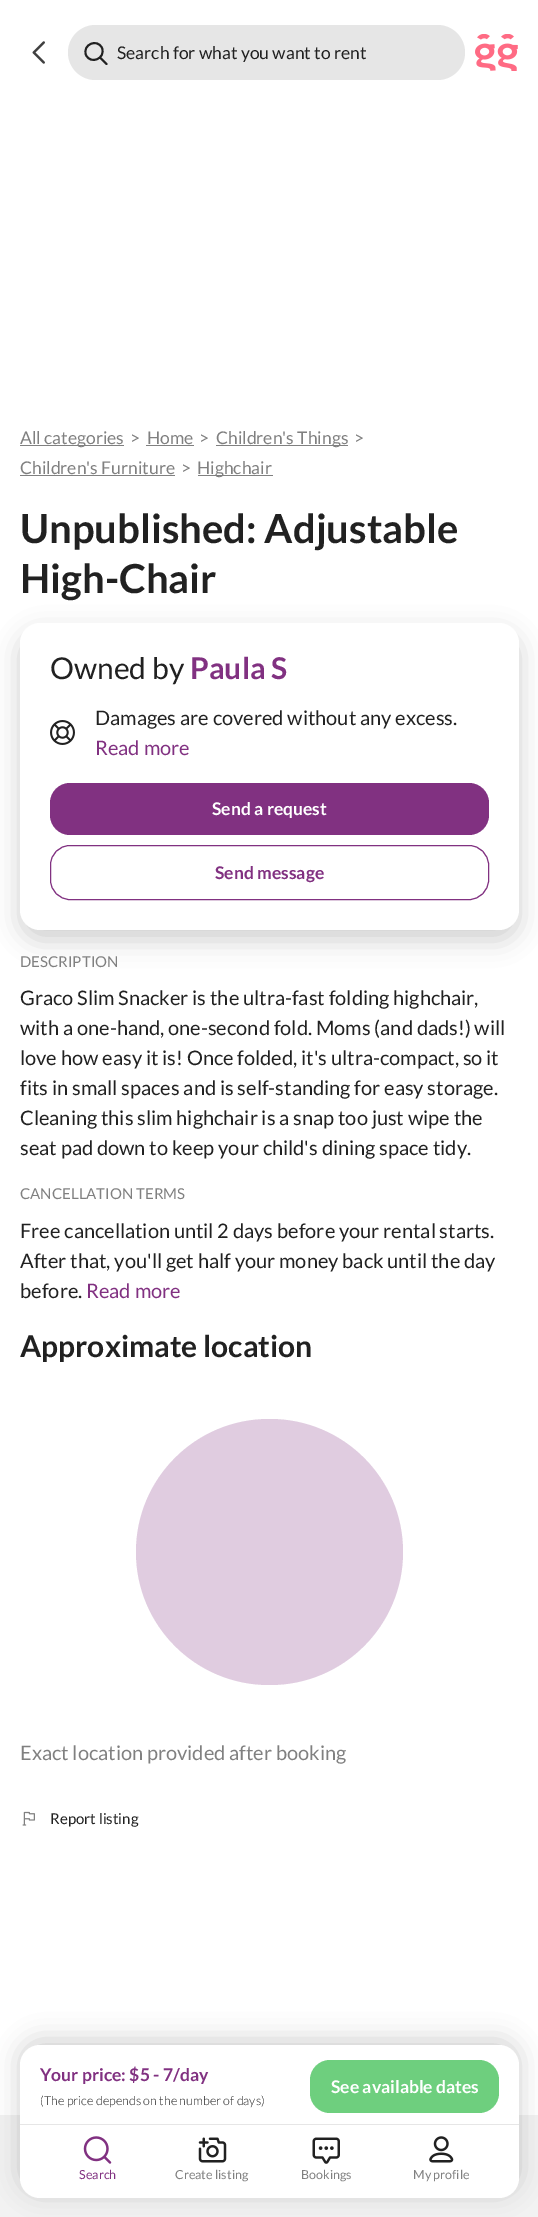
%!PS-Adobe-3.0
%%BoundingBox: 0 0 538 2217
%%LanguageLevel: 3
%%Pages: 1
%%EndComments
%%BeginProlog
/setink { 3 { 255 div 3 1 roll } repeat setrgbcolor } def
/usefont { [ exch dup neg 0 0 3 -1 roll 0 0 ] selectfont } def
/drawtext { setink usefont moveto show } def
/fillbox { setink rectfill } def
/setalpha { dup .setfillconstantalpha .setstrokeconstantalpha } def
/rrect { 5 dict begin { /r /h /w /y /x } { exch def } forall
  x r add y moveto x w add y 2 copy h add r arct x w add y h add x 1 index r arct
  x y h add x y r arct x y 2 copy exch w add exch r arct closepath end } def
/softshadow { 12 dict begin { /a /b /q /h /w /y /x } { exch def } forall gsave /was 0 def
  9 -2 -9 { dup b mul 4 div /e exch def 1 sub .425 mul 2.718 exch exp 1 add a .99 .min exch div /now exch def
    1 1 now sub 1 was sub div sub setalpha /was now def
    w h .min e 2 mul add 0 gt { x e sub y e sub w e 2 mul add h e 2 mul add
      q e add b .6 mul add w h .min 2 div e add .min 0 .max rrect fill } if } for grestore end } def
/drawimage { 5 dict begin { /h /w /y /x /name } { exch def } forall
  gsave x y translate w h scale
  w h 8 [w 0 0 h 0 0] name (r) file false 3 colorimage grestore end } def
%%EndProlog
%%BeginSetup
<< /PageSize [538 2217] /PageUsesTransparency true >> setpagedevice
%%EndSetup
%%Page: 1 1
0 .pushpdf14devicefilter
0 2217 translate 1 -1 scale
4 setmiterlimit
0 0 538 2217 255 255 255 fillbox
(assets/img1.rgb) 32 41 13 23 drawimage
230 230 230 setink
68 25 397 55 27.5 rrect fill
33 33 33 setink
1.9 setlinewidth
1 setlinecap
1 setlinejoin
86 55 moveto 90.5 65 106 58.5 102 48 curveto 97.5 38 82 44.5 86 55 curveto closepath 100 57.5 moveto 106.5 64 lineto stroke
(Search for what you want to rent) 117 59 /Lato-Regular 17.5 33 33 33 drawtext
(assets/img2.rgb) 475 34 43 37 drawimage
20 445 104 1 128 128 128 fillbox
(All categories) 20 444 /Lato-Regular 17.5 128 128 128 drawtext
(>) 130 444 /Lato-Regular 17.5 128 128 128 drawtext
(Home) 147 444 /Lato-Regular 17.5 128 128 128 drawtext
146 445 48 1 128 128 128 fillbox
(>) 199 444 /Lato-Regular 17.5 128 128 128 drawtext
216 445 132 1 128 128 128 fillbox
(Children's Things) 216 444 /Lato-Regular 17.5 128 128 128 drawtext
(>) 354 444 /Lato-Regular 17.5 128 128 128 drawtext
(Children's Furniture) 20 474 /Lato-Regular 17.5 128 128 128 drawtext
20 475 155 1 128 128 128 fillbox
(>) 181 474 /Lato-Regular 17.5 128 128 128 drawtext
198 475 75 1 128 128 128 fillbox
(Highchair) 197 474 /Lato-Regular 17.5 128 128 128 drawtext
(Unpublished: Adjustable) 20 543 /Lato-Bold 40 33 33 33 drawtext
(High-Chair) 20 593 /Lato-Bold 40 33 33 33 drawtext
26 26 26 setink
20 633 499 307 20 12.5 0.2 softshadow
255 255 255 setink
20 623 499 307 20 rrect fill
(Owned by) 50 679 /Lato-Regular 30 33 33 33 drawtext
(Paula S) 190 679 /Lato-Bold 30 129 49 129 drawtext
(assets/img3.rgb) 50 720 25 25 drawimage
(Damages are covered without any excess.) 95 725 /Lato-Regular 20 33 33 33 drawtext
(Read more) 95 755 /Lato-Regular 20 129 49 129 drawtext
50 783 439 52 20 rrect fill
(Send a request) 212 815 /Lato-Bold 17.5 255 255 255 drawtext
129 49 129 setink
1 setlinewidth
0 setlinecap
0 setlinejoin
50.5 845.5 438 54 19.5 rrect stroke
(Send message) 215 879 /Lato-Bold 17.5 129 49 129 drawtext
(DESCRIPTION) 20 967 /Lato-Regular 15 128 128 128 drawtext
(Graco Slim Snacker is the ultra-fast folding highchair,) 20 1005 /Lato-Regular 20 33 33 33 drawtext
(with a one-hand, one-second fold. Moms \(and dads!\) will) 20 1035 /Lato-Regular 20 33 33 33 drawtext
(love how easy it is! Once folded, it's ultra-compact, so it) 20 1065 /Lato-Regular 20 33 33 33 drawtext
(fits in small spaces and is self-standing for easy storage.) 20 1095 /Lato-Regular 20 33 33 33 drawtext
(Cleaning this slim highchair is a snap too just wipe the) 20 1125 /Lato-Regular 20 33 33 33 drawtext
(seat pad down to keep your child's dining space tidy.) 20 1155 /Lato-Regular 20 33 33 33 drawtext
(CANCELLATION TERMS) 20 1199 /Lato-Regular 15 128 128 128 drawtext
(Free cancellation until 2 days before your rental starts.) 20 1238 /Lato-Regular 20 33 33 33 drawtext
(After that, you'll get half your money back until the day) 20 1268 /Lato-Regular 20 33 33 33 drawtext
(before.) 20 1298 /Lato-Regular 20 33 33 33 drawtext
(Read more) 86 1298 /Lato-Regular 20 129 49 129 drawtext
(Approximate location) 20 1357 /Lato-Bold 30 33 33 33 drawtext
224 204 224 setink
136 1419 267 266 133 rrect fill
(Exact location provided after booking) 20 1760 /Lato-Regular 20 128 128 128 drawtext
(assets/img4.rgb) 22 1811 13 15 drawimage
(Report listing) 50 1824 /Lato-Regular 15 33 33 33 drawtext
0 2115 538 102 242 242 242 fillbox
26 26 26 setink
20 2040 499 153 20 12.5 0.2 softshadow
255 255 255 setink
20 2045 499 153 20 rrect fill
(Your price: $5 - 7/day) 40 2081 /Lato-Bold 17.5 129 49 129 drawtext
(\(The price depends on the number of days\)) 40 2105 /Lato-Light 12.5 33 33 33 drawtext
110 207 126 setink
310 2060 189 53 20 rrect fill
(See available dates) 331 2093 /Lato-Bold 17.5 255 255 255 drawtext
20 2124 499 1 230 230 230 fillbox
(assets/img5.rgb) 83 2136 29 28 drawimage
(Search) 79 2179 /Lato-Regular 12.5 129 49 129 drawtext
(assets/img6.rgb) 198 2137 29 26 drawimage
(Create listing) 175 2179 /Lato-Regular 12.5 128 128 128 drawtext
(assets/img7.rgb) 312 2137 28 27 drawimage
(Bookings) 301 2179 /Lato-Regular 12.5 128 128 128 drawtext
(assets/img8.rgb) 429 2136 25 27 drawimage
(My profile) 413 2179 /Lato-Regular 12.5 128 128 128 drawtext
.poppdf14devicefilter showpage
%%EOF
